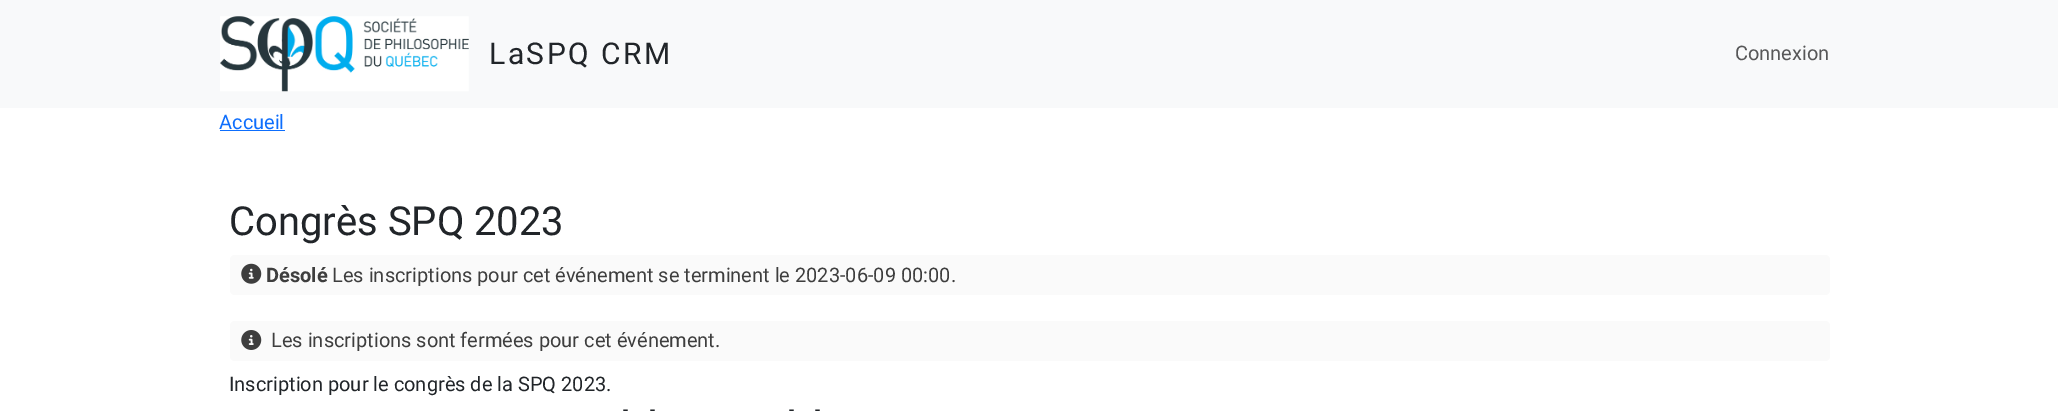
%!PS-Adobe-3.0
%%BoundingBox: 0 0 2058 411
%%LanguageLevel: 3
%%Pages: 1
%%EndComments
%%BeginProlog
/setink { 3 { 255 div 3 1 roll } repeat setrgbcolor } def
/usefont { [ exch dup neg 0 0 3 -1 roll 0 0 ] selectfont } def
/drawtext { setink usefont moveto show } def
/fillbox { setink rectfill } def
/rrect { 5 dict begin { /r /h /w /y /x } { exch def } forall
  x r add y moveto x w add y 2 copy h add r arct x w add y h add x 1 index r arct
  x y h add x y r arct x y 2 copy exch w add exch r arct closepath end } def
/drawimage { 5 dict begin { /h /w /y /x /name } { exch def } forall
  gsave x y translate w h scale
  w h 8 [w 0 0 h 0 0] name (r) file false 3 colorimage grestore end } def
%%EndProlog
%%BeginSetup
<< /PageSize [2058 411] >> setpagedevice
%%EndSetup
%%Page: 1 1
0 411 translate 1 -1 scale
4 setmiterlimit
0 0 2058 411 255 255 255 fillbox
0 0 2058 108 248 249 250 fillbox
(assets/img1.rgb) 220 16 249 76 drawimage
/Roboto-Regular 30 usefont
33 37 41 setink
489 64 moveto 2.5 0 (LaSPQ CRM) ashow
(Connexion) 1735 60 /Roboto-Regular 20 87 87 88 drawtext
(Accueil) 219 129 /Roboto-Regular 20 13 110 253 drawtext
220 130 65 1 13 110 253 fillbox
(Congrès SPQ 2023) 229 235 /Roboto-Regular 40 33 37 41 drawtext
250 250 250 setink
230 255 1600 40 5 rrect fill
(assets/img2.rgb) 241 263 21 21 drawimage
(Désolé) 266 282 /Roboto-Bold 20 62 62 62 drawtext
(Les inscriptions pour cet événement se terminent le 2023-06-09 00:00.) 332 282 /Roboto-Regular 20 62 62 62 drawtext
250 250 250 setink
230 321 1600 40 5 rrect fill
(assets/img3.rgb) 241 330 21 20 drawimage
(Les inscriptions sont fermées pour cet événement.) 271 347 /Roboto-Regular 20 62 62 62 drawtext
(Inscription pour le congrès de la SPQ 2023.) 229 391 /Roboto-Regular 20 33 37 41 drawtext
(-) 623 416 /Roboto-Regular 19 33 37 41 drawtext
(-) 650 416 /Roboto-Regular 19 33 37 41 drawtext
(-) 789 416 /Roboto-Regular 19 33 37 41 drawtext
(-) 815 416 /Roboto-Regular 19 33 37 41 drawtext
showpage
%%EOF
